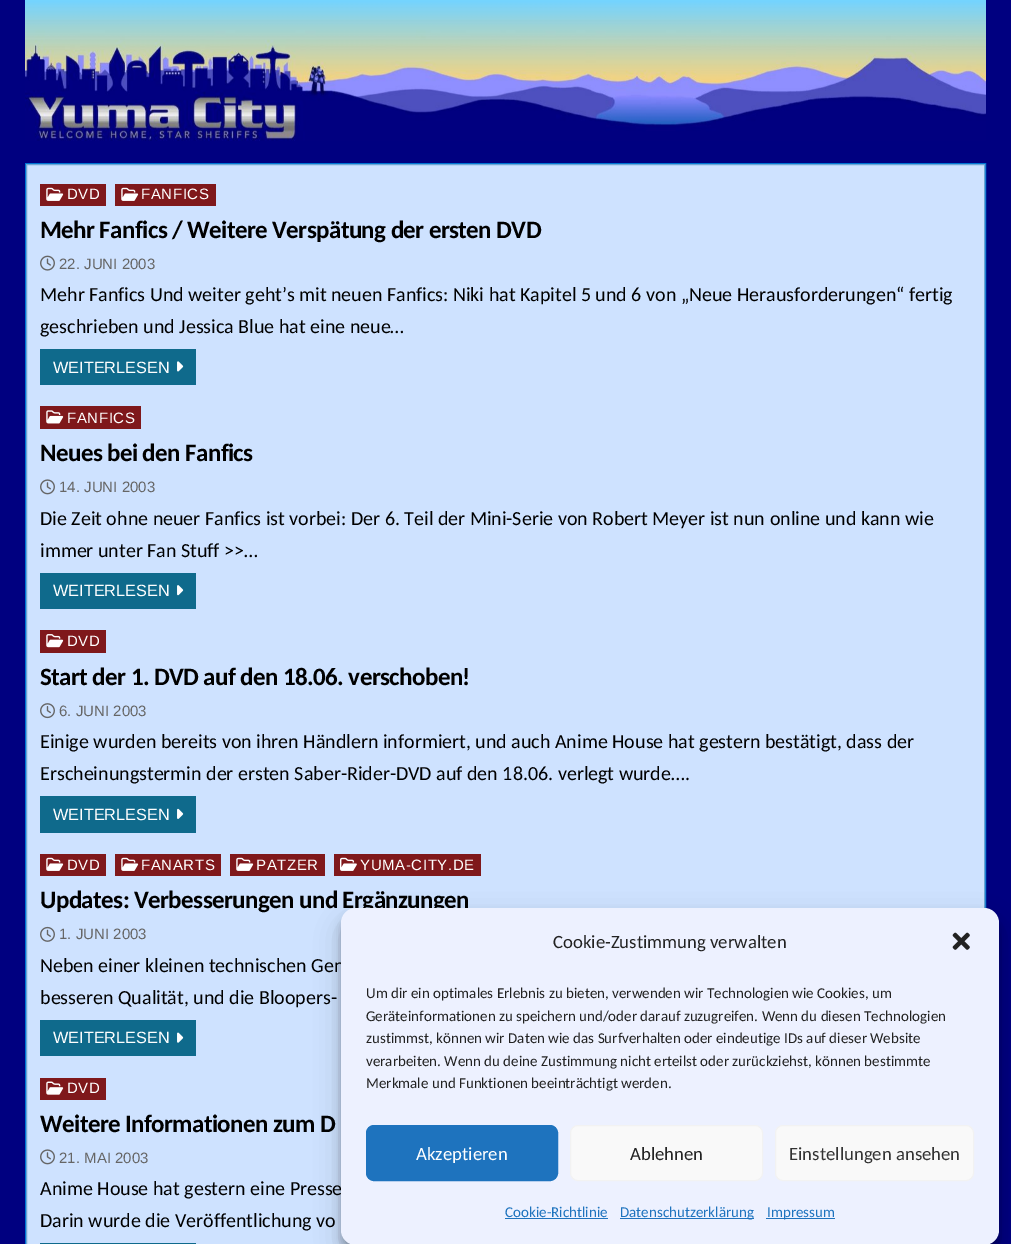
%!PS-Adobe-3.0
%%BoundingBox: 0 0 1011 1244
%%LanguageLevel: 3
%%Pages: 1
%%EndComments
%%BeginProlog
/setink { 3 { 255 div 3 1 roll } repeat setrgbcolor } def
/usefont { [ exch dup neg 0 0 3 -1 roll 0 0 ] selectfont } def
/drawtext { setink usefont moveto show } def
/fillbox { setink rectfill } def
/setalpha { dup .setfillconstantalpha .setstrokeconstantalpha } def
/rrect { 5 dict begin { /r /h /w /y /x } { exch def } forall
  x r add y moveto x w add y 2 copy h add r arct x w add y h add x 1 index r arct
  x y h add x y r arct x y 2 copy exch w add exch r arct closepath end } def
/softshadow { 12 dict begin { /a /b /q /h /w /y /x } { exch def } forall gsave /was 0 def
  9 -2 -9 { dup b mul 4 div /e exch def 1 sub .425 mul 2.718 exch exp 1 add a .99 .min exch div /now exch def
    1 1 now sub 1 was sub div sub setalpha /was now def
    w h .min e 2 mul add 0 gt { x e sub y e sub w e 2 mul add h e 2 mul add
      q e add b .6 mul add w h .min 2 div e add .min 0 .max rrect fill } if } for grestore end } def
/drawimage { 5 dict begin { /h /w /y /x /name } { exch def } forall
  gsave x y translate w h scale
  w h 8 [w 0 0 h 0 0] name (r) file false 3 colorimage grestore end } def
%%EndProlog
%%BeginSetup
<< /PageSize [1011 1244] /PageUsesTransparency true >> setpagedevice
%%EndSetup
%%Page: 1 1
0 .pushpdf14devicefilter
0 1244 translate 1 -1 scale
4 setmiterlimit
0 0 1011 1244 0 0 128 fillbox
(assets/img1.rgb) 25 0 961 141 drawimage
27 165 957 1079 206 226 255 fillbox
0 116 211 setink
25.5 163.5 960 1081 rectstroke
109 166 212 setink
26.5 164.5 958 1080 rectstroke
40 184 66 22 127 24 27 fillbox
(assets/img2.rgb) 46 187 18 14 drawimage
/LiberationSans-Regular 15 usefont
255 255 255 setink
67 199 moveto 0.6 0 (DVD) ashow
115 184 101 22 127 24 27 fillbox
(assets/img2.rgb) 121 187 18 14 drawimage
255 255 255 setink
141 199 moveto 0.6 0 (FANFICS) ashow
/Carlito-Bold 25 usefont
0 0 0 setink
40 238 moveto -0.6 0 (Mehr Fanfics / Weitere Verspätung der ersten DVD) ashow
(assets/img3.rgb) 40 255 15 16 drawimage
(22. JUNI 2003) 59 269 /LiberationSans-Regular 15 102 102 102 drawtext
(Mehr Fanfics Und weiter geht’s mit neuen Fanfics: Niki hat Kapitel 5 und 6 von „Neue Herausforderungen“ fertig) 40 301 /Carlito-Regular 20 0 0 0 drawtext
(geschrieben und Jessica Blue hat eine neue…) 40 333 /Carlito-Regular 20 0 0 0 drawtext
40 349 156 36 15 106 140 fillbox
(WEITERLESEN) 53 373 /LiberationSans-Regular 16.25 255 255 255 drawtext
(assets/img4.rgb) 177 361 7 11 drawimage
40 406 101 23 127 24 27 fillbox
(assets/img5.rgb) 46 410 18 14 drawimage
/LiberationSans-Regular 15 usefont
255 255 255 setink
67 423 moveto 0.6 0 (FANFICS) ashow
/Carlito-Bold 25 usefont
0 0 0 setink
40 461 moveto -0.6 0 (Neues bei den Fanfics) ashow
(assets/img6.rgb) 40 479 15 16 drawimage
(14. JUNI 2003) 59 492 /LiberationSans-Regular 15 102 102 102 drawtext
(Die Zeit ohne neuer Fanfics ist vorbei: Der 6. Teil der Mini-Serie von Robert Meyer ist nun online und kann wie) 40 525 /Carlito-Regular 20 0 0 0 drawtext
(immer unter Fan Stuff >>…) 40 557 /Carlito-Regular 20 0 0 0 drawtext
40 573 156 36 15 106 140 fillbox
(WEITERLESEN) 53 596 /LiberationSans-Regular 16.25 255 255 255 drawtext
(assets/img7.rgb) 177 585 7 11 drawimage
40 630 66 23 127 24 27 fillbox
(assets/img8.rgb) 46 634 18 14 drawimage
/LiberationSans-Regular 15 usefont
255 255 255 setink
67 646 moveto 0.6 0 (DVD) ashow
/Carlito-Bold 25 usefont
0 0 0 setink
40 685 moveto -0.6 0 (Start der 1. DVD auf den 18.06. verschoben!) ashow
(assets/img9.rgb) 40 703 15 16 drawimage
(6. JUNI 2003) 59 716 /LiberationSans-Regular 15 102 102 102 drawtext
(Einige wurden bereits von ihren Händlern informiert, und auch Anime House hat gestern bestätigt, dass der) 40 748 /Carlito-Regular 20 0 0 0 drawtext
(Erscheinungstermin der ersten Saber-Rider-DVD auf den 18.06. verlegt wurde….) 40 780 /Carlito-Regular 20 0 0 0 drawtext
40 796 156 37 15 106 140 fillbox
(WEITERLESEN) 53 820 /LiberationSans-Regular 16.25 255 255 255 drawtext
(assets/img10.rgb) 177 808 7 11 drawimage
40 854 66 22 127 24 27 fillbox
(assets/img2.rgb) 46 857 18 14 drawimage
/LiberationSans-Regular 15 usefont
255 255 255 setink
67 870 moveto 0.6 0 (DVD) ashow
115 854 106 22 127 24 27 fillbox
(assets/img2.rgb) 121 857 18 14 drawimage
255 255 255 setink
141 870 moveto 0.6 0 (FANARTS) ashow
230 854 95 22 127 24 27 fillbox
(assets/img2.rgb) 236 857 18 14 drawimage
255 255 255 setink
256 870 moveto 0.6 0 (PATZER) ashow
334 854 147 22 127 24 27 fillbox
(assets/img11.rgb) 340 857 17 14 drawimage
255 255 255 setink
360 870 moveto 0.6 0 (YUMA-CITY.DE) ashow
/Carlito-Bold 25 usefont
0 0 0 setink
40 908 moveto -0.6 0 (Updates: Verbesserungen und Ergänzungen) ashow
(assets/img12.rgb) 40 926 15 16 drawimage
(1. JUNI 2003) 59 939 /LiberationSans-Regular 15 102 102 102 drawtext
(Neben einer kleinen technischen Gen) 40 972 /Carlito-Regular 20 0 0 0 drawtext
(besseren Qualität, und die Bloopers-) 40 1004 /Carlito-Regular 20 0 0 0 drawtext
40 1020 156 36 15 106 140 fillbox
(WEITERLESEN) 53 1043 /LiberationSans-Regular 16.25 255 255 255 drawtext
(assets/img13.rgb) 177 1032 7 11 drawimage
40 1078 66 22 127 24 27 fillbox
(assets/img14.rgb) 46 1081 18 14 drawimage
/LiberationSans-Regular 15 usefont
255 255 255 setink
67 1093 moveto 0.6 0 (DVD) ashow
/Carlito-Bold 25 usefont
0 0 0 setink
40 1132 moveto -0.6 0 (Weitere Informationen zum D) ashow
(assets/img6.rgb) 40 1149 15 16 drawimage
(21. MAI 2003) 59 1163 /LiberationSans-Regular 15 102 102 102 drawtext
(Anime House hat gestern eine Presse) 40 1195 /Carlito-Regular 20 0 0 0 drawtext
(Darin wurde die Veröffentlichung vo) 40 1227 /Carlito-Regular 20 0 0 0 drawtext
40 1243 156 1 15 106 140 fillbox
0 0 0 setink
341 915 658 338 15 4 0.23 softshadow
341 920 658 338 15 12.5 0.19 softshadow
237 241 255 setink
341 908 658 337 15 rrect fill
(Cookie-Zustimmung verwalten) 553 948 /Carlito-Regular 18.75 34 34 34 drawtext
(assets/img15.rgb) 952 932 18 18 drawimage
(Um dir ein optimales Erlebnis zu bieten, verwenden wir Technologien wie Cookies, um) 366 998 /Carlito-Regular 15 34 34 34 drawtext
(Geräteinformationen zu speichern und/oder darauf zuzugreifen. Wenn du diesen Technologien) 366 1021 /Carlito-Regular 15 34 34 34 drawtext
(zustimmst, können wir Daten wie das Surfverhalten oder eindeutige IDs auf dieser Website) 366 1043 /Carlito-Regular 15 34 34 34 drawtext
(verarbeiten. Wenn du deine Zustimmung nicht erteilst oder zurückziehst, können bestimmte) 366 1066 /Carlito-Regular 15 34 34 34 drawtext
(Merkmale und Funktionen beeinträchtigt werden.) 366 1088 /Carlito-Regular 15 34 34 34 drawtext
30 115 190 setink
366.5 1125.5 191 55 7.5 rrect gsave fill grestore
stroke
(Akzeptieren) 416 1160 /Carlito-Regular 18.75 255 255 255 drawtext
249 249 249 setink
570.5 1125.5 192 55 7.5 rrect gsave fill grestore
242 242 242 setink
stroke
(Ablehnen) 630 1160 /Carlito-Regular 18.75 34 34 34 drawtext
249 249 249 setink
775.5 1125.5 198 55 7.5 rrect gsave fill grestore
242 242 242 setink
stroke
(Einstellungen ansehen) 789 1160 /Carlito-Regular 18.75 51 51 51 drawtext
(Cookie-Richtlinie) 505 1217 /Carlito-Regular 15 30 115 190 drawtext
505 1218 103 1 30 115 190 fillbox
620 1218 134 1 30 115 190 fillbox
(Datenschutzerklärung) 620 1217 /Carlito-Regular 15 30 115 190 drawtext
766 1218 69 1 30 115 190 fillbox
(Impressum) 767 1217 /Carlito-Regular 15 30 115 190 drawtext
.poppdf14devicefilter showpage
%%EOF
